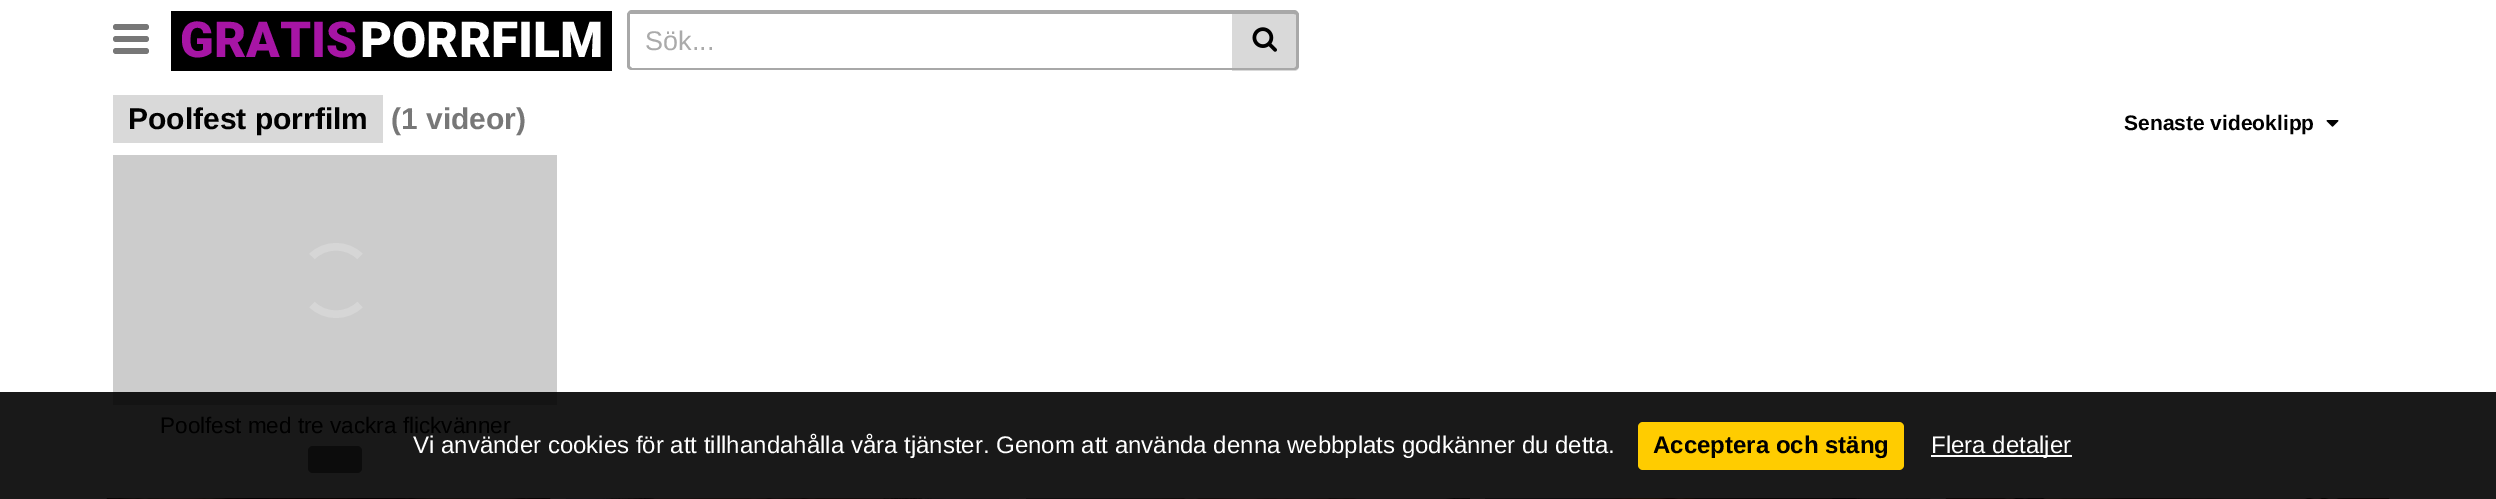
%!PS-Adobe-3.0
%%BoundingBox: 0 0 2496 499
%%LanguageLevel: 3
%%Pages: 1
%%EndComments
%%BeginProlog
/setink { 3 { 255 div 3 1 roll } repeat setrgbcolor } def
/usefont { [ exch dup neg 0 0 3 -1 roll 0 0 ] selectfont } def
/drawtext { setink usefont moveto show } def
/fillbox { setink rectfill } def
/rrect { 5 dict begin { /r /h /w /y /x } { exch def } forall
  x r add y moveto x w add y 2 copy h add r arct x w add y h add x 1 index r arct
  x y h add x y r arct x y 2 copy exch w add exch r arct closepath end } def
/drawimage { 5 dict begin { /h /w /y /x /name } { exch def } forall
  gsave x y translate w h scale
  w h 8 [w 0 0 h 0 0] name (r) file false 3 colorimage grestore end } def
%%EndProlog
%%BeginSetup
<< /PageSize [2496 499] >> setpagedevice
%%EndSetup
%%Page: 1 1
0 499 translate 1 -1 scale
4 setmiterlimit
0 0 2496 499 255 255 255 fillbox
0 392 2496 107 25 25 25 fillbox
119 119 119 setink
113 24 36 6 3 rrect fill
113 36 36 6 3 rrect fill
113 48 36 6 3 rrect fill
171 11 441 60 0 0 0 fillbox
(GRATIS) 180 57 /Roboto-Black 49.5 167 21 165 drawtext
(PORRFILM) 360 57 /Roboto-Black 49.5 255 255 255 drawtext
168 168 168 setink
632 10 moveto 1233 10 lineto 1233 70 lineto 632 70 lineto 629 70 627 68 627 66 curveto 627 15 lineto 627 13 629 10 632 10 curveto closepath 632 14 moveto 1233 14 lineto 1233 68 lineto 632 68 lineto 631 67 630 67 630 66 curveto 630 14 lineto closepath eofill
(Sök...) 645 50 /LiberationSans-Regular 27 170 170 170 drawtext
217 217 217 setink
1232 11 moveto 1294 11 lineto 1297 11 1299 13 1299 16 curveto 1299 66 lineto 1299 69 1297 71 1294 71 curveto 1232 71 lineto closepath fill
168 168 168 setink
1232 10 moveto 1294 10 lineto 1297 10 1299 13 1299 15 curveto 1299 66 lineto 1299 68 1297 70 1294 70 curveto 1232 70 lineto closepath 1232 14 moveto 1294 14 lineto 1295 14 1296 14 1296 15 curveto 1296 66 lineto 1296 67 1295 68 1294 68 curveto 1232 68 lineto closepath eofill
(assets/img1.rgb) 1252 27 25 25 drawimage
113 95 270 48 217 217 217 fillbox
(Poolfest porrfilm) 128 129 /LiberationSans-Bold 30 0 0 0 drawtext
(\(1 videor\)) 391 129 /LiberationSans-Bold 30 119 119 119 drawtext
(Senaste videoklipp) 2124 130 /LiberationSans-Bold 21 0 0 0 drawtext
(assets/img2.rgb) 2326 120 13 7 drawimage
113 155 444 237 204 204 204 fillbox
113 392 444 13 20 20 20 fillbox
214 214 214 setink
7.5 setlinewidth
312 256.5 moveto 325 243.5 347 243.5 360 256.5 curveto stroke
360 304.5 moveto 347 317.5 325 317.5 312 304.5 curveto stroke
(Poolfest med tre vackra flickvänner) 160 433 /LiberationSans-Regular 22.5 0 0 0 drawtext
12 12 12 setink
308 446 54 27 5 rrect fill
(assets/img3.rgb) 106 498 445 1 drawimage
(assets/img4.rgb) 565 498 445 1 drawimage
(assets/img5.rgb) 1026 498 444 1 drawimage
(assets/img6.rgb) 1485 498 446 1 drawimage
(assets/img7.rgb) 1945 498 445 1 drawimage
(Vi använder cookies för att tillhandahålla våra tjänster. Genom att använda denna webbplats godkänner du detta.) 413 453 /LiberationSans-Regular 24 255 255 255 drawtext
255 204 0 setink
1638 422 266 48 5 rrect fill
(Acceptera och stäng) 1653 453 /LiberationSans-Bold 24 0 0 0 drawtext
1931 455 141 2 255 255 255 fillbox
(Flera detaljer) 1931 453 /LiberationSans-Regular 24 255 255 255 drawtext
showpage
%%EOF
